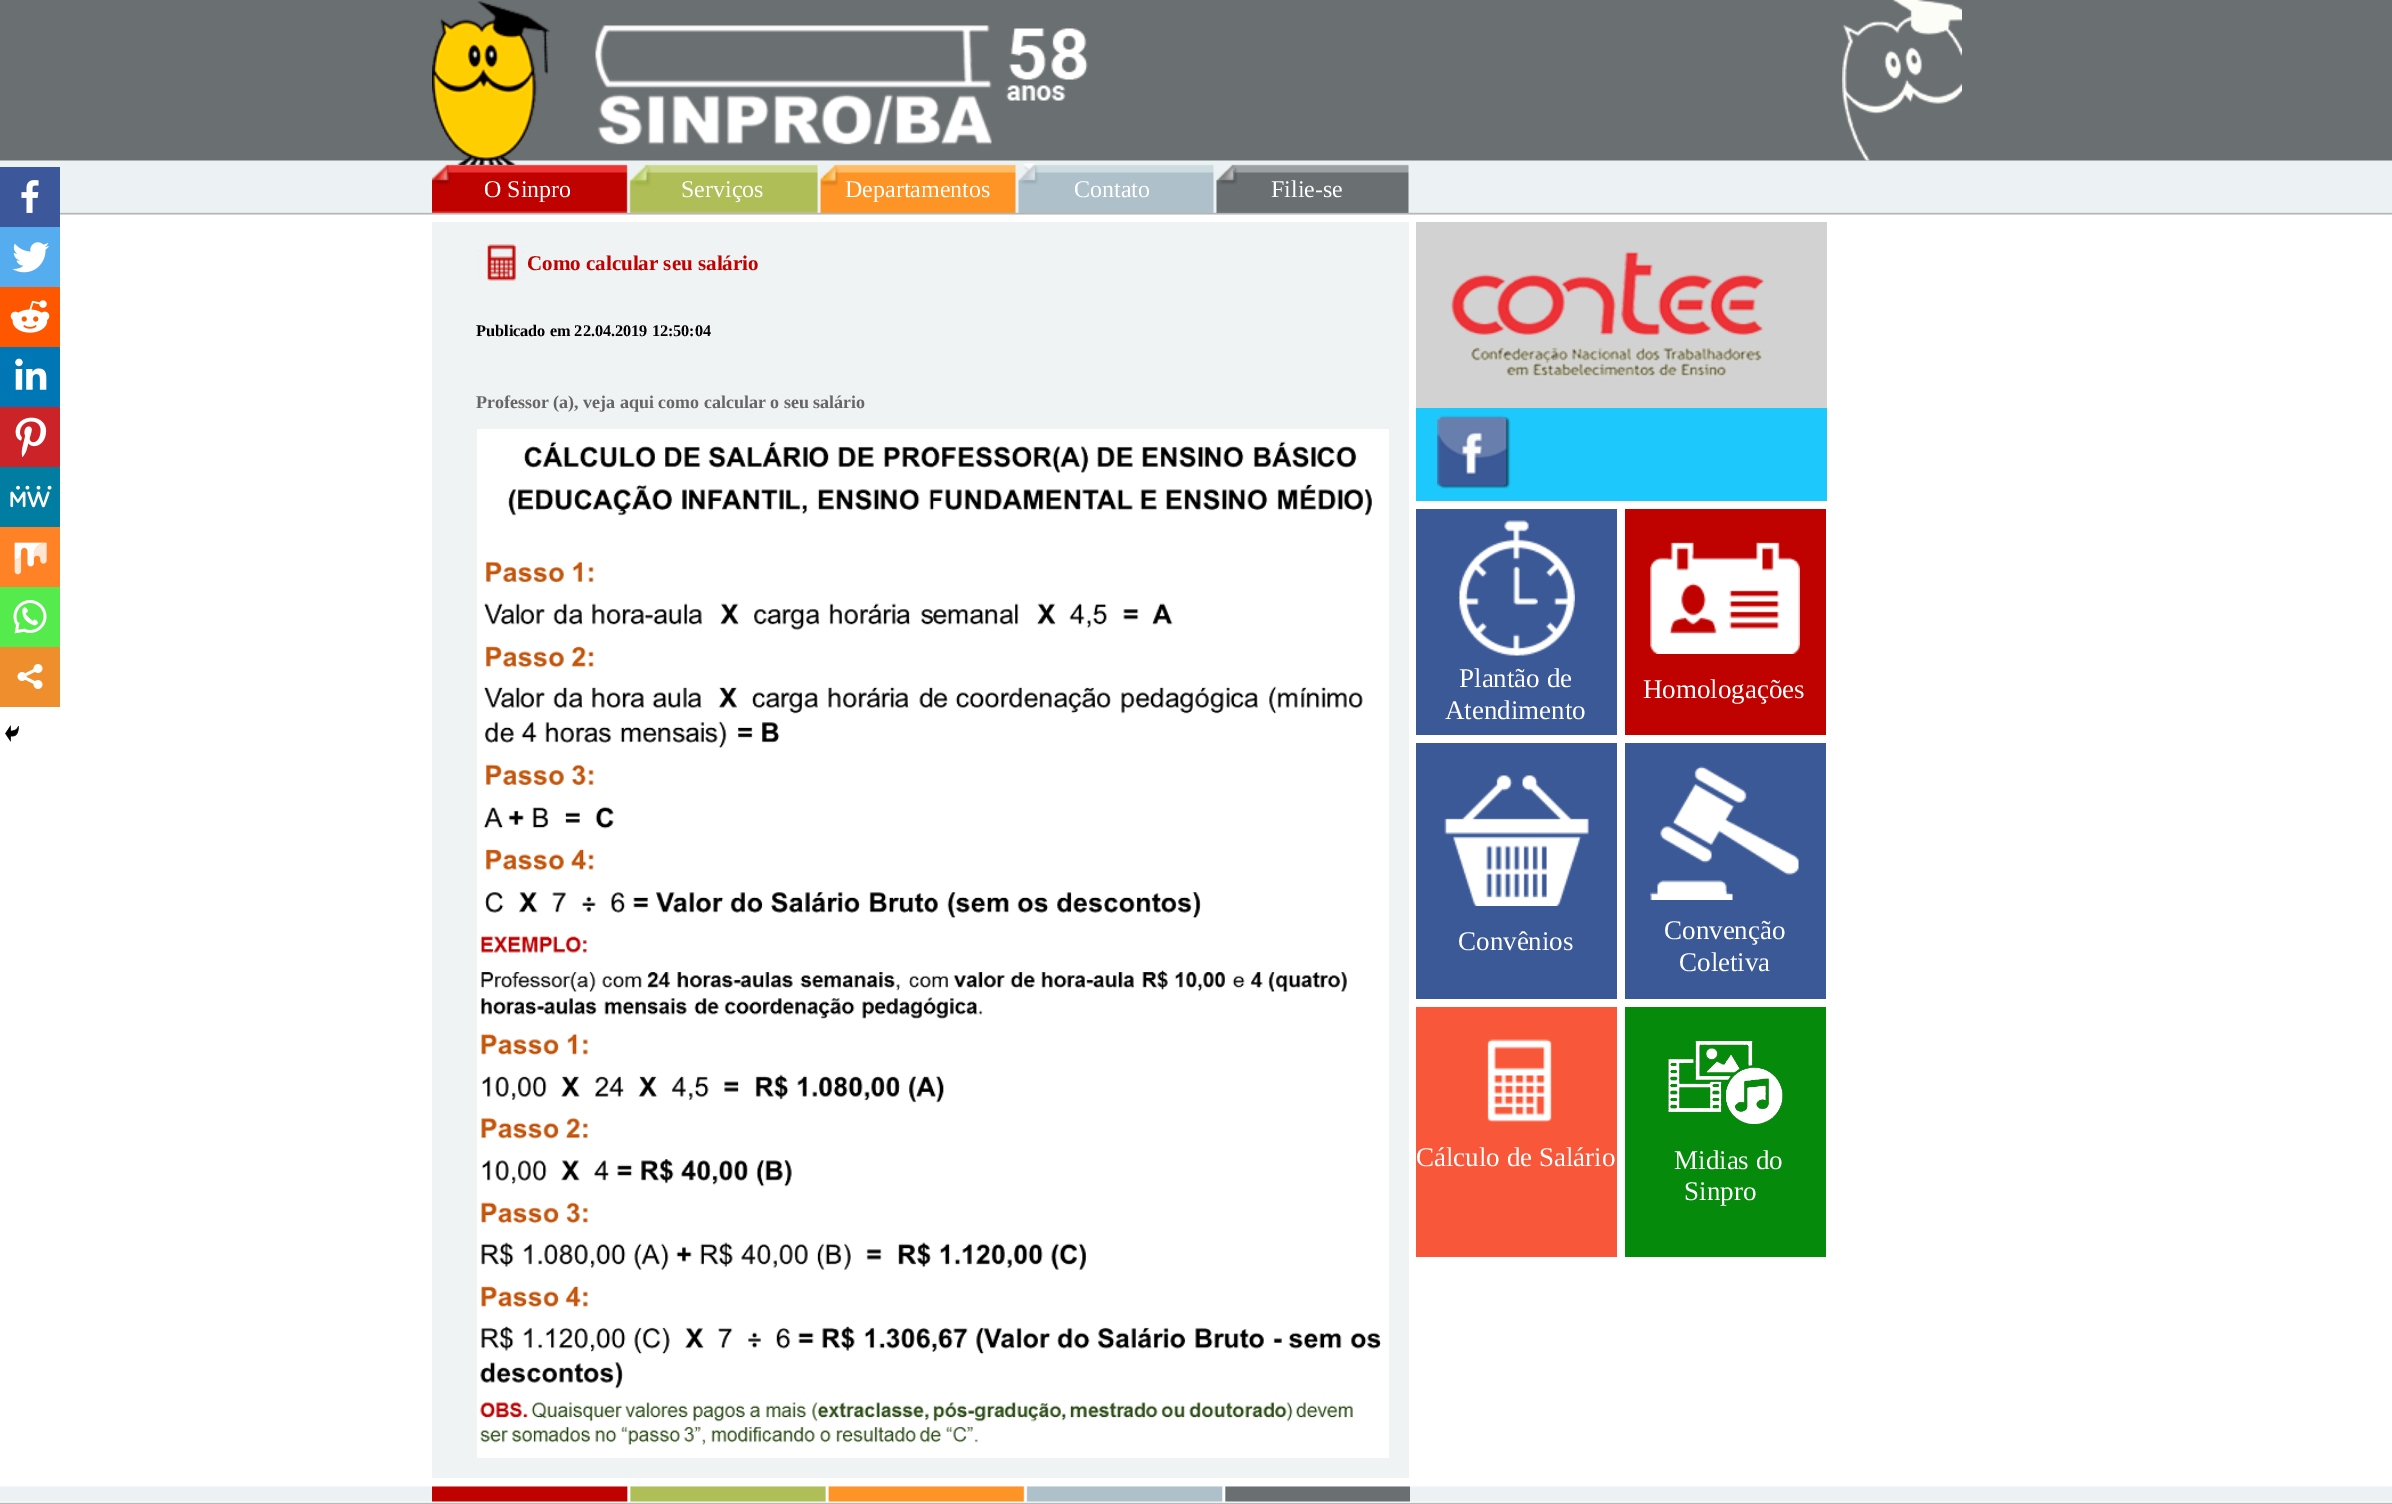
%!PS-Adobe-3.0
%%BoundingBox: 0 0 2392 1504
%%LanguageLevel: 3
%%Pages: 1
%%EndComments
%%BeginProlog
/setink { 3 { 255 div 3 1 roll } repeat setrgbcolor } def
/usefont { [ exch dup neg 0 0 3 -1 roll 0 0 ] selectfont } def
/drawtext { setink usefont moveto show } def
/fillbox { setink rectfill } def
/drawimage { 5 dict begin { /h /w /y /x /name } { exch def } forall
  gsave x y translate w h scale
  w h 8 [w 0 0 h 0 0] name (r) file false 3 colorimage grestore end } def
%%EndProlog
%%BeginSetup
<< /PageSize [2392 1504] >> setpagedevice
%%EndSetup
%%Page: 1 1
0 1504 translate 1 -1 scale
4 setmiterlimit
0 0 2392 1504 255 255 255 fillbox
(assets/img1.rgb) 0 1486 2392 18 drawimage
(assets/img2.rgb) 0 0 2392 215 drawimage
(assets/img3.rgb) 1842 0 120 161 drawimage
(assets/img4.rgb) 432 1 656 164 drawimage
(assets/img5.rgb) 432 163 977 50 drawimage
(O Sinpro) 484 197 /LiberationSerif-Regular 24 254 254 254 drawtext
(Serviços) 681 197 /LiberationSerif-Regular 24 254 254 254 drawtext
(Departamentos) 845 197 /LiberationSerif-Regular 24 254 254 254 drawtext
(Contato) 1074 197 /LiberationSerif-Regular 24 254 254 254 drawtext
(Filie-se) 1271 197 /LiberationSerif-Regular 24 254 254 254 drawtext
432 222 977 1256 240 243 244 fillbox
0 167 60 60 60 88 154 fillbox
(assets/img6.rgb) 21 180 18 33 drawimage
0 227 60 60 85 172 238 fillbox
(assets/img7.rgb) 12 242 37 31 drawimage
0 287 60 60 255 87 0 fillbox
(assets/img8.rgb) 10 300 40 33 drawimage
0 347 60 60 0 119 181 fillbox
(assets/img9.rgb) 15 358 32 32 drawimage
0 407 60 60 204 35 41 fillbox
(assets/img10.rgb) 15 417 32 40 drawimage
0 467 60 60 0 125 161 fillbox
(assets/img11.rgb) 10 485 42 23 drawimage
0 527 60 60 255 130 38 fillbox
(assets/img12.rgb) 14 542 33 33 drawimage
0 587 60 60 85 235 76 fillbox
(assets/img13.rgb) 13 600 34 34 drawimage
0 647 60 60 238 142 45 fillbox
(assets/img14.rgb) 17 664 26 25 drawimage
(assets/img15.rgb) 5 725 14 17 drawimage
(assets/img16.rgb) 477 244 49 37 drawimage
(Como calcular seu salário) 527 270 /LiberationSerif-Bold 21 191 1 0 drawtext
(Publicado em 22.04.2019 12:50:04) 476 336 /LiberationSerif-Bold 16.25 0 0 0 drawtext
(Professor \(a\), veja aqui como calcular o seu salário) 476 408 /LiberationSerif-Bold 18 102 102 102 drawtext
(assets/img17.rgb) 477 429 912 1029 drawimage
1416 222 411 186 210 210 210 fillbox
(assets/img18.rgb) 1450 251 315 126 drawimage
1416 408 411 93 29 200 252 fillbox
(assets/img19.rgb) 1437 415 74 74 drawimage
1416 509 201 226 59 89 151 fillbox
(assets/img20.rgb) 1458 520 117 136 drawimage
(Plantão de) 1459 687 /LiberationSerif-Regular 27 254 254 254 drawtext
(Atendimento) 1445 719 /LiberationSerif-Regular 27 254 254 254 drawtext
1625 509 201 226 191 2 0 fillbox
(assets/img21.rgb) 1650 541 150 113 drawimage
(Homologações) 1643 698 /LiberationSerif-Regular 27 254 254 254 drawtext
1416 743 201 256 59 89 151 fillbox
(assets/img22.rgb) 1444 775 145 131 drawimage
(Convênios) 1458 950 /LiberationSerif-Regular 27 254 254 254 drawtext
1625 743 201 256 59 89 151 fillbox
(assets/img23.rgb) 1650 766 149 134 drawimage
(Convenção) 1664 939 /LiberationSerif-Regular 27 254 254 254 drawtext
(Coletiva) 1679 971 /LiberationSerif-Regular 27 254 254 254 drawtext
1416 1007 201 250 248 87 57 fillbox
(assets/img24.rgb) 1487 1039 65 83 drawimage
(Cálculo de Salário) 1416 1166 /LiberationSerif-Regular 27 254 254 254 drawtext
1625 1007 201 250 5 138 11 fillbox
(assets/img25.rgb) 1667 1041 116 83 drawimage
(Midias do) 1674 1169 /LiberationSerif-Regular 27 254 254 254 drawtext
(Sinpro) 1684 1200 /LiberationSerif-Regular 27 254 254 254 drawtext
(assets/img26.rgb) 432 1486 978 16 drawimage
showpage
%%EOF
